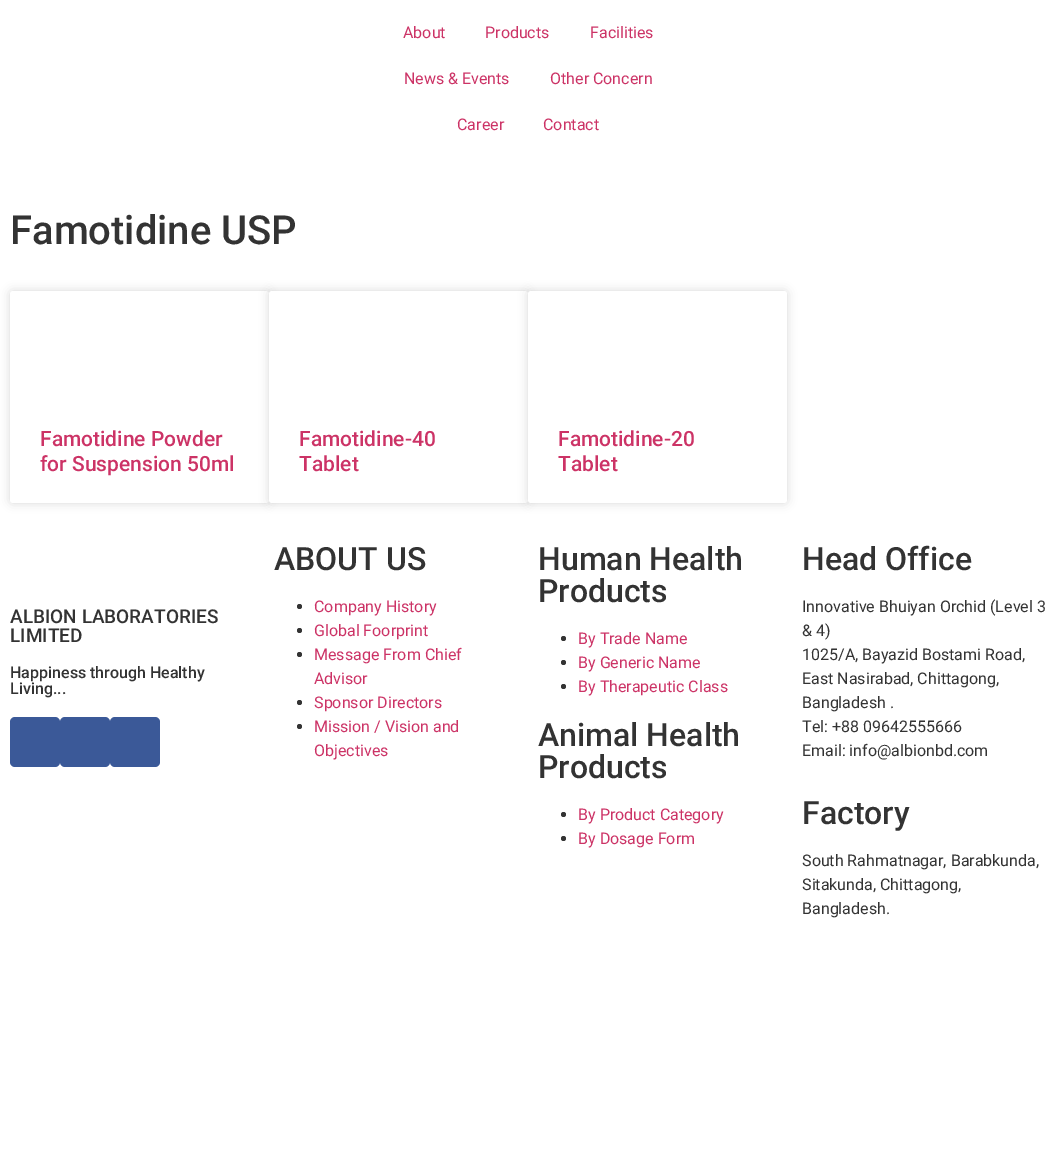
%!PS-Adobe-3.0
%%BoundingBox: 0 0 1056 1153
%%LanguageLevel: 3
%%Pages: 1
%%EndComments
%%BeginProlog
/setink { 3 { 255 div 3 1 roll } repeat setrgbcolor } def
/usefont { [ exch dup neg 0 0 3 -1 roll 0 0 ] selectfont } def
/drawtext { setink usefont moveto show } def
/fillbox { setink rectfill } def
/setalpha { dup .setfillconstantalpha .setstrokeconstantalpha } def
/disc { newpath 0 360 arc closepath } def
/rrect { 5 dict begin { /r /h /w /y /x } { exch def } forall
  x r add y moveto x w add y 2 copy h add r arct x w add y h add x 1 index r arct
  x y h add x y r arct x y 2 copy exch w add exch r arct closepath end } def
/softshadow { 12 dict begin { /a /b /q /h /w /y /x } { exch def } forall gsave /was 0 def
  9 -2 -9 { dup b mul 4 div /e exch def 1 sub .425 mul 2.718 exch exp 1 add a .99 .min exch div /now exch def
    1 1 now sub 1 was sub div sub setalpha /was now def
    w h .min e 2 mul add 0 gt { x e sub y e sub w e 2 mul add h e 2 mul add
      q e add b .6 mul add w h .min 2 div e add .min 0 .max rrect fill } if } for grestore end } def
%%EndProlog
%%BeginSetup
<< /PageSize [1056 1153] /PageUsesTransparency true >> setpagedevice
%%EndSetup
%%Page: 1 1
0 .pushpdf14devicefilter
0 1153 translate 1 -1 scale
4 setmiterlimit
0 0 1056 1153 255 255 255 fillbox
(About) 403 38 /Roboto-Regular 16 204 51 102 drawtext
(Products) 485 38 /Roboto-Regular 16 204 51 102 drawtext
(Facilities) 590 38 /Roboto-Regular 16 204 51 102 drawtext
(News & Events) 404 84 /Roboto-Regular 16 204 51 102 drawtext
(Other Concern) 550 84 /Roboto-Regular 16 204 51 102 drawtext
(Career) 457 130 /Roboto-Regular 16 204 51 102 drawtext
(Contact) 543 130 /Roboto-Regular 16 204 51 102 drawtext
(Famotidine USP) 10 244 /Roboto-Medium 40 51 51 51 drawtext
0 0 0 setink
10 291 259 212 3 5 0.15 softshadow
255 255 255 setink
10 291 259 212 3 rrect fill
(Famotidine Powder) 40 446 /Roboto-Medium 21 204 51 102 drawtext
(for Suspension 50ml) 40 471 /Roboto-Medium 21 204 51 102 drawtext
0 0 0 setink
269 291 259 212 3 5 0.15 softshadow
255 255 255 setink
269 291 259 212 3 rrect fill
(Famotidine-40) 299 446 /Roboto-Medium 21 204 51 102 drawtext
(Tablet) 299 471 /Roboto-Medium 21 204 51 102 drawtext
0 0 0 setink
528 291 259 212 3 5 0.15 softshadow
255 255 255 setink
528 291 259 212 3 rrect fill
(Famotidine-20) 558 446 /Roboto-Medium 21 204 51 102 drawtext
(Tablet) 558 471 /Roboto-Medium 21 204 51 102 drawtext
(ALBION LABORATORIES) 10 623 /Roboto-Medium 19 51 51 51 drawtext
(LIMITED) 10 642 /Roboto-Medium 19 51 51 51 drawtext
(Happiness through Healthy) 10 678 /Roboto-Medium 16 51 51 51 drawtext
(Living...) 10 694 /Roboto-Medium 16 51 51 51 drawtext
59 89 152 setink
10 717 50 50 5 rrect fill
60 717 50 50 5 rrect fill
110 717 50 50 5 rrect fill
(ABOUT US) 274 570 /Roboto-Medium 32 51 51 51 drawtext
299.5 606.5 2.5 disc fill
(Company History) 314 612 /Roboto-Regular 16 204 51 102 drawtext
51 51 51 setink
299.5 630.5 2.5 disc fill
(Global Foorprint) 314 636 /Roboto-Regular 16 204 51 102 drawtext
51 51 51 setink
299.5 654.5 2.5 disc fill
(Message From Chief) 314 660 /Roboto-Regular 16 204 51 102 drawtext
(Advisor) 314 684 /Roboto-Regular 16 204 51 102 drawtext
51 51 51 setink
299.5 702.5 2.5 disc fill
(Sponsor Directors) 314 708 /Roboto-Regular 16 204 51 102 drawtext
51 51 51 setink
299.5 726.5 2.5 disc fill
(Mission / Vision and) 314 732 /Roboto-Regular 16 204 51 102 drawtext
(Objectives) 314 756 /Roboto-Regular 16 204 51 102 drawtext
(Human Health) 538 570 /Roboto-Medium 32 51 51 51 drawtext
(Products) 538 602 /Roboto-Medium 32 51 51 51 drawtext
563.5 638.5 2.5 disc fill
(By Trade Name) 578 644 /Roboto-Regular 16 204 51 102 drawtext
51 51 51 setink
563.5 662.5 2.5 disc fill
(By Generic Name) 578 668 /Roboto-Regular 16 204 51 102 drawtext
51 51 51 setink
563.5 686.5 2.5 disc fill
(By Therapeutic Class) 578 692 /Roboto-Regular 16 204 51 102 drawtext
(Animal Health) 538 746 /Roboto-Medium 32 51 51 51 drawtext
(Products) 538 778 /Roboto-Medium 32 51 51 51 drawtext
563.5 814.5 2.5 disc fill
(By Product Category) 578 820 /Roboto-Regular 16 204 51 102 drawtext
51 51 51 setink
563.5 838.5 2.5 disc fill
(By Dosage Form) 578 844 /Roboto-Regular 16 204 51 102 drawtext
(Head Office) 802 570 /Roboto-Medium 32 51 51 51 drawtext
(Innovative Bhuiyan Orchid \(Level 3) 802 612 /Roboto-Regular 16 51 51 51 drawtext
(& 4\)) 802 636 /Roboto-Regular 16 51 51 51 drawtext
(1025/A, Bayazid Bostami Road,) 802 660 /Roboto-Regular 16 51 51 51 drawtext
(East Nasirabad, Chittagong,) 802 684 /Roboto-Regular 16 51 51 51 drawtext
(Bangladesh .) 802 708 /Roboto-Regular 16 51 51 51 drawtext
(Tel: +88 09642555666) 802 732 /Roboto-Regular 16 51 51 51 drawtext
(Email: info@albionbd.com) 802 756 /Roboto-Regular 16 51 51 51 drawtext
(Factory) 802 824 /Roboto-Medium 32 51 51 51 drawtext
(South Rahmatnagar, Barabkunda,) 802 866 /Roboto-Regular 16 51 51 51 drawtext
(Sitakunda, Chittagong,) 802 890 /Roboto-Regular 16 51 51 51 drawtext
(Bangladesh.) 802 914 /Roboto-Regular 16 51 51 51 drawtext
.poppdf14devicefilter showpage
%%EOF
